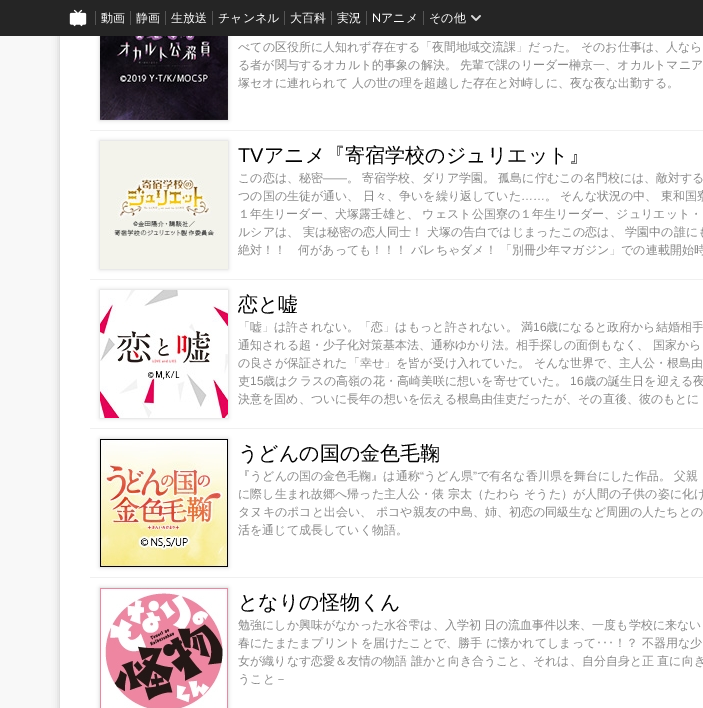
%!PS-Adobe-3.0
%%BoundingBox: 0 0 703 708
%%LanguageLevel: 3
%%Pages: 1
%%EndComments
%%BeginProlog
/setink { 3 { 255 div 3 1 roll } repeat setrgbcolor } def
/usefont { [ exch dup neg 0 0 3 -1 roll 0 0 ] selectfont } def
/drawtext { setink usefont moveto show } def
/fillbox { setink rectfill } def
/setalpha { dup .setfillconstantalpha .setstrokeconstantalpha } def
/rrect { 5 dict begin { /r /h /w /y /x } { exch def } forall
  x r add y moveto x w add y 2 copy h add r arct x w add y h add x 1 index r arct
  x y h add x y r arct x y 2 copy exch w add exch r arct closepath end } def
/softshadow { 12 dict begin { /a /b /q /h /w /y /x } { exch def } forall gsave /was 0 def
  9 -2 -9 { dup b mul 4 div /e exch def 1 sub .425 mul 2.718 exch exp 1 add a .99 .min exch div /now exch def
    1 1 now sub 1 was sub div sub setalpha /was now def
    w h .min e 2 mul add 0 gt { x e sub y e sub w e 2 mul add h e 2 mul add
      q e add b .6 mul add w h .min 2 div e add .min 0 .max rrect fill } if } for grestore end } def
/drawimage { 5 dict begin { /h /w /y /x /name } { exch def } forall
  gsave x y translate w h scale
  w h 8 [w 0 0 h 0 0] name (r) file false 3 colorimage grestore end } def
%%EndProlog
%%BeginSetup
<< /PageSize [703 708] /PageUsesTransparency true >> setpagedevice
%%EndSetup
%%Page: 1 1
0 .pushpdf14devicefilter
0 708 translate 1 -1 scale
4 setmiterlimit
0 0 703 708 248 248 248 fillbox
0 0 0 setink
60 -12 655 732 0 4 0.2 softshadow
60 36 643 672 255 255 255 fillbox
0 0 0 setink
100 -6 128 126 0 2 0.2 softshadow
0 0 703 36 37 37 37 fillbox
(assets/img1.rgb) 69 9 18 18 drawimage
95 11 1 14 85 85 85 fillbox
(動画) 101 22 /WenQuanYiZenHei-Medium 12 255 255 255 drawtext
130 11 1 14 85 85 85 fillbox
(静画) 136 22 /WenQuanYiZenHei-Medium 12 255 255 255 drawtext
165 11 1 14 85 85 85 fillbox
(生放送) 171 22 /WenQuanYiZenHei-Medium 12 255 255 255 drawtext
212 11 1 14 85 85 85 fillbox
(チャンネル) 218 22 /WenQuanYiZenHei-Medium 12 255 255 255 drawtext
284 11 1 14 85 85 85 fillbox
(大百科) 290 22 /WenQuanYiZenHei-Medium 12 255 255 255 drawtext
331 11 1 14 85 85 85 fillbox
(実況) 337 22 /WenQuanYiZenHei-Medium 12 255 255 255 drawtext
366 11 1 14 85 85 85 fillbox
(N) 372 22 /Lato-Regular 12 255 255 255 drawtext
(アニメ) 381 22 /WenQuanYiZenHei-Medium 12 255 255 255 drawtext
423 11 1 14 85 85 85 fillbox
(その他) 429 22 /WenQuanYiZenHei-Medium 12 255 255 255 drawtext
(assets/img2.rgb) 471 15 10 6 drawimage
90 130 613 1 240 240 240 fillbox
(assets/img3.rgb) 100 36 128 84 drawimage
(べての区役所に人知れず存在する「夜間地域交流課」だった。 そのお仕事は、人なら) 238 51 /WenQuanYiZenHei-Medium 12 136 136 136 drawtext
(る者が関与するオカルト的事象の解決。 先輩で課のリーダー榊京一、オカルトマニア) 238 69 /WenQuanYiZenHei-Medium 12 136 136 136 drawtext
(塚セオに連れられて 人の世の理を超越した存在と対峙しに、夜な夜な出勤する。) 238 87 /WenQuanYiZenHei-Medium 12 136 136 136 drawtext
90 279 613 1 240 240 240 fillbox
0 0 0 setink
100 141 128 128 0 2 0.2 softshadow
(assets/img4.rgb) 100 141 128 128 drawimage
(TV) 238 162 /LiberationSans-Regular 20 0 0 0 drawtext
(アニメ『寄宿学校のジュリエット』) 264 162 /WenQuanYiZenHei-Medium 20 0 0 0 drawtext
(この恋は、秘密) 238 182 /WenQuanYiZenHei-Medium 12 136 136 136 drawtext
(――) 323 182 /LiberationSans-Regular 12 136 136 136 drawtext
(寄宿学校、ダリア学園。 孤島に佇むこの名門校には、敵対する) 362 182 /WenQuanYiZenHei-Medium 12 136 136 136 drawtext
(。) 347 182 /WenQuanYiZenHei-Medium 12 136 136 136 drawtext
(つの国の生徒が通い、 日々、争いを繰り返していた) 238 200 /WenQuanYiZenHei-Medium 12 136 136 136 drawtext
(……) 521 200 /LiberationSans-Regular 12 136 136 136 drawtext
(。) 545 200 /WenQuanYiZenHei-Medium 12 136 136 136 drawtext
(そんな状況の中、 東和国寮) 560 200 /WenQuanYiZenHei-Medium 12 136 136 136 drawtext
(１年生リーダー、犬塚露壬雄と、 ウェスト公国寮の１年生リーダー、ジュリエット・) 238 218 /WenQuanYiZenHei-Medium 12 136 136 136 drawtext
(ルシアは、 実は秘密の恋人同士！ 犬塚の告白ではじまったこの恋は、 学園中の誰にも) 238 236 /WenQuanYiZenHei-Medium 12 136 136 136 drawtext
(絶対！！　何があっても！！！ バレちゃダメ！) 238 254 /WenQuanYiZenHei-Medium 12 136 136 136 drawtext
(「別冊少年マガジン」での連載開始時) 500 254 /WenQuanYiZenHei-Medium 12 136 136 136 drawtext
90 428 613 1 240 240 240 fillbox
0 0 0 setink
100 290 128 128 0 2 0.2 softshadow
(assets/img5.rgb) 100 290 128 128 drawimage
(恋と嘘) 238 311 /WenQuanYiZenHei-Medium 20 0 0 0 drawtext
(「嘘」は許されない。「恋」はもっと許されない。 満) 238 331 /WenQuanYiZenHei-Medium 12 136 136 136 drawtext
(16) 533 331 /LiberationSans-Regular 12 136 136 136 drawtext
(歳になると政府から結婚相手) 546 331 /WenQuanYiZenHei-Medium 12 136 136 136 drawtext
(通知される超・少子化対策基本法、通称ゆかり法。相手探しの面倒もなく、 国家から) 238 349 /WenQuanYiZenHei-Medium 12 136 136 136 drawtext
(の良さが保証された「幸せ」を皆が受け入れていた。 そんな世界で、主人公・根島由) 238 367 /WenQuanYiZenHei-Medium 12 136 136 136 drawtext
(吏) 238 385 /WenQuanYiZenHei-Medium 12 136 136 136 drawtext
(15) 250 385 /LiberationSans-Regular 12 136 136 136 drawtext
(歳はクラスの高嶺の花・高崎美咲に想いを寄せていた。) 263 385 /WenQuanYiZenHei-Medium 12 136 136 136 drawtext
(16) 570 385 /LiberationSans-Regular 12 136 136 136 drawtext
(歳の誕生日を迎える夜) 584 385 /WenQuanYiZenHei-Medium 12 136 136 136 drawtext
(決意を固め、ついに長年の想いを伝える根島由佳吏だったが、その直後、彼のもとに) 238 403 /WenQuanYiZenHei-Medium 12 136 136 136 drawtext
90 577 613 1 240 240 240 fillbox
0 0 0 setink
100 439 128 128 0 2 0.2 softshadow
(assets/img6.rgb) 100 439 128 128 drawimage
(うどんの国の金色毛鞠) 238 460 /WenQuanYiZenHei-Medium 20 0 0 0 drawtext
(『うどんの国の金色毛鞠』は通称) 238 480 /WenQuanYiZenHei-Medium 12 136 136 136 drawtext
(“) 420 480 /LiberationSans-Regular 12 136 136 136 drawtext
(うどん県) 424 480 /WenQuanYiZenHei-Medium 12 136 136 136 drawtext
(”) 473 480 /LiberationSans-Regular 12 136 136 136 drawtext
(で有名な香川県を舞台にした作品。 父親) 477 480 /WenQuanYiZenHei-Medium 12 136 136 136 drawtext
(に際し生まれ故郷へ帰った主人公・俵 宗太（たわら そうた）が人間の子供の姿に化け) 238 498 /WenQuanYiZenHei-Medium 12 136 136 136 drawtext
(タヌキのポコと出会い、 ポコや親友の中島、姉、初恋の同級生など周囲の人たちとの) 238 516 /WenQuanYiZenHei-Medium 12 136 136 136 drawtext
(活を通じて成長していく物語。) 238 534 /WenQuanYiZenHei-Medium 12 136 136 136 drawtext
0 0 0 setink
100 588 128 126 0 2 0.2 softshadow
(assets/img7.rgb) 100 588 128 120 drawimage
(となりの怪物くん) 238 609 /WenQuanYiZenHei-Medium 20 0 0 0 drawtext
(勉強にしか興味がなかった水谷雫は、入学初 日の流血事件以来、一度も学校に来ない) 238 629 /WenQuanYiZenHei-Medium 12 136 136 136 drawtext
(春にたまたまプリントを届けたことで、勝手 に懐かれてしまって) 238 647 /WenQuanYiZenHei-Medium 12 136 136 136 drawtext
(･･･) 596 647 /IPAGothic-Regular 12 136 136 136 drawtext
(！？ 不器用な少) 614 647 /WenQuanYiZenHei-Medium 12 136 136 136 drawtext
(女が織りなす恋愛＆友情の物語 誰かと向き合うこと、それは、自分自身と正 直に向き) 238 665 /WenQuanYiZenHei-Medium 12 136 136 136 drawtext
(うこと－) 238 683 /WenQuanYiZenHei-Medium 12 136 136 136 drawtext
.poppdf14devicefilter showpage
%%EOF
